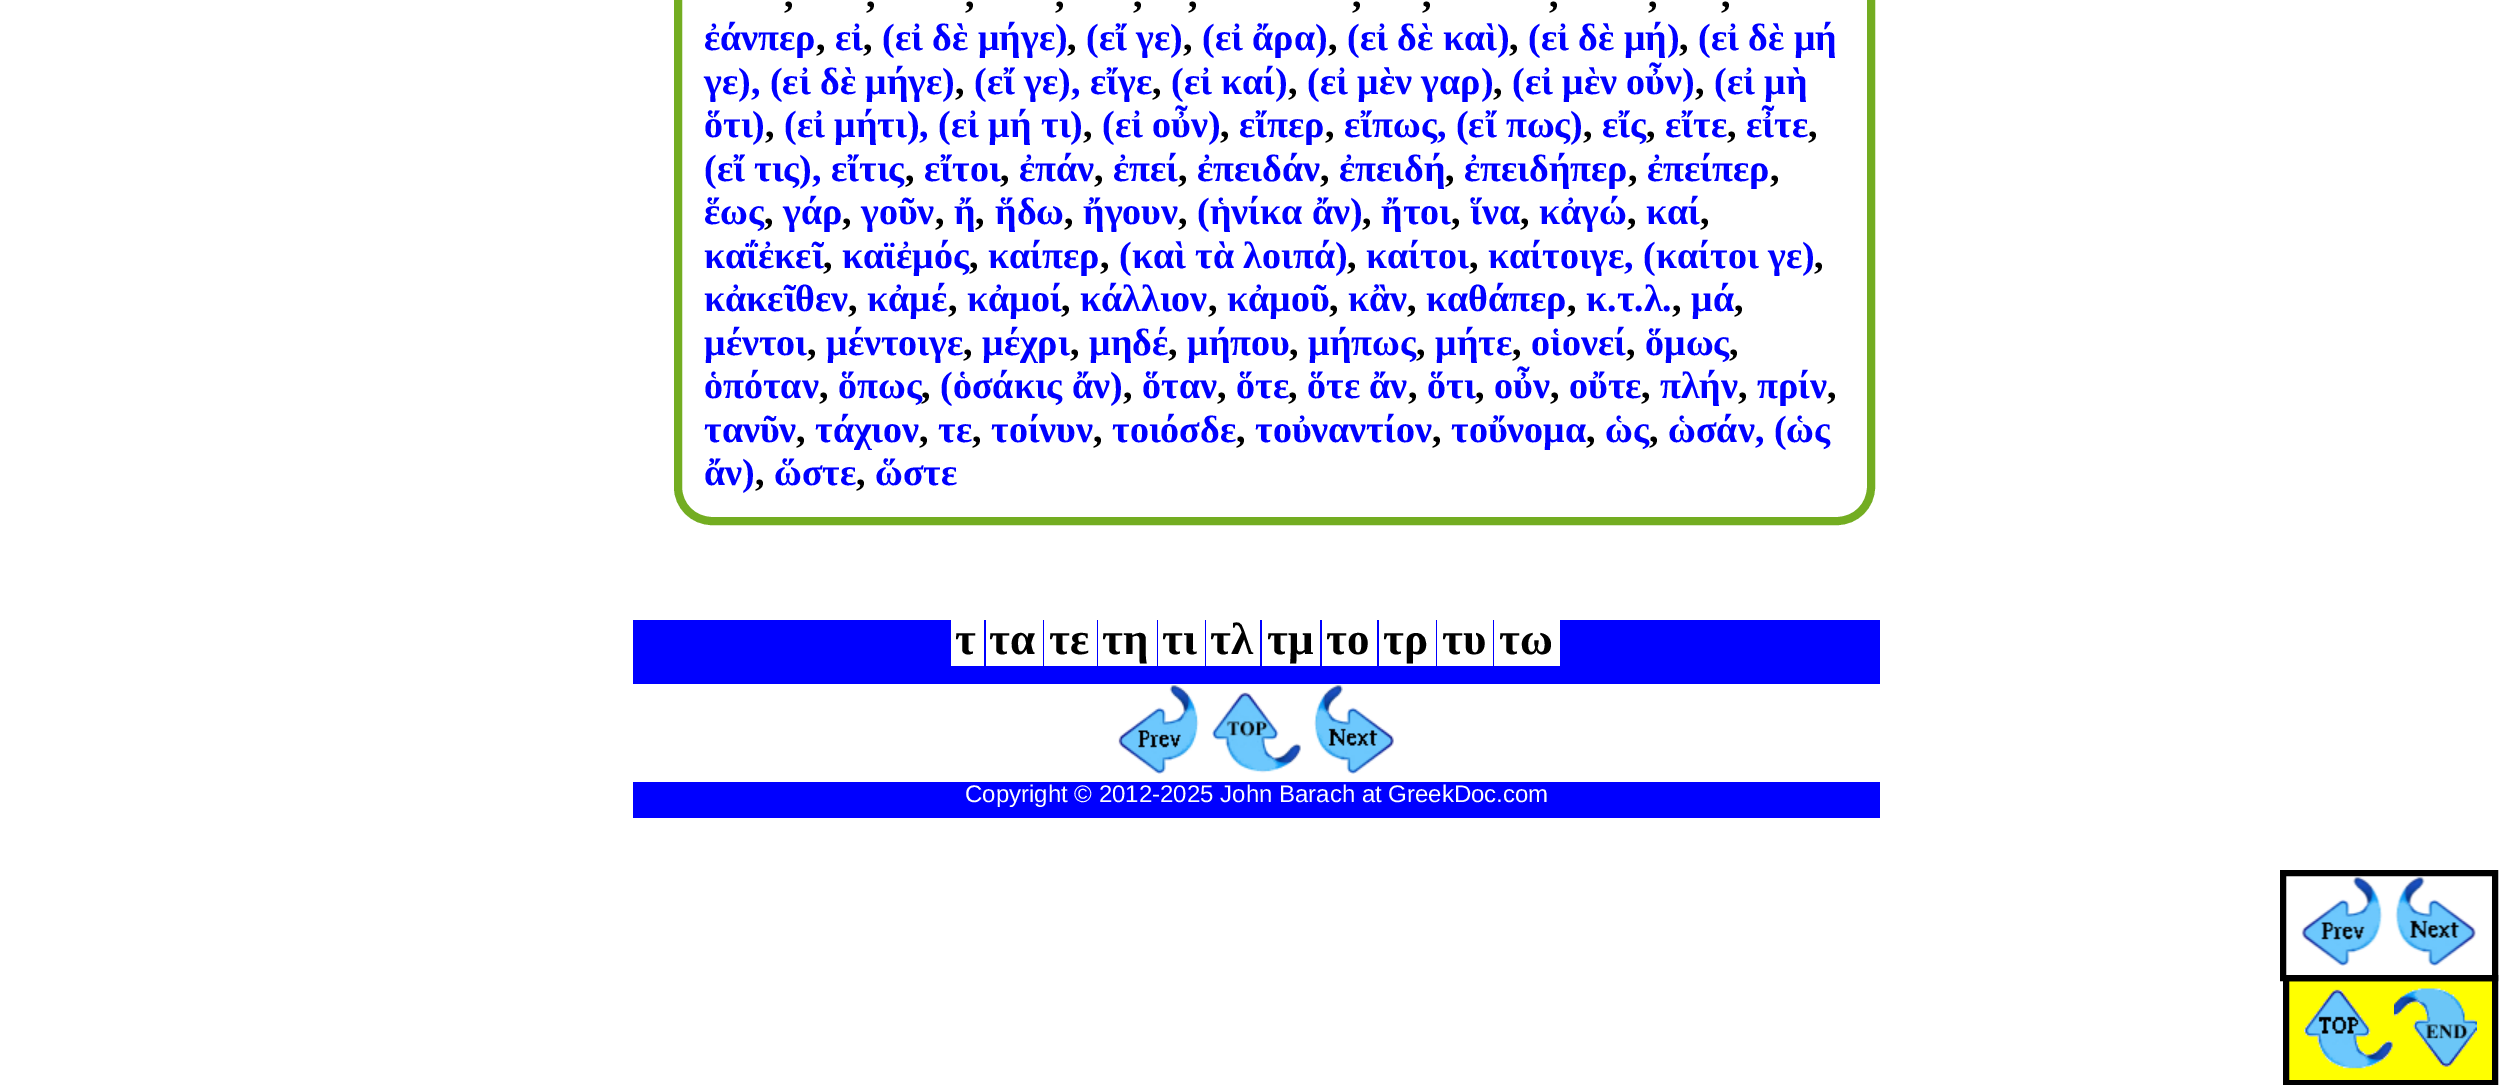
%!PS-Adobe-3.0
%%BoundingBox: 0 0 2512 1085
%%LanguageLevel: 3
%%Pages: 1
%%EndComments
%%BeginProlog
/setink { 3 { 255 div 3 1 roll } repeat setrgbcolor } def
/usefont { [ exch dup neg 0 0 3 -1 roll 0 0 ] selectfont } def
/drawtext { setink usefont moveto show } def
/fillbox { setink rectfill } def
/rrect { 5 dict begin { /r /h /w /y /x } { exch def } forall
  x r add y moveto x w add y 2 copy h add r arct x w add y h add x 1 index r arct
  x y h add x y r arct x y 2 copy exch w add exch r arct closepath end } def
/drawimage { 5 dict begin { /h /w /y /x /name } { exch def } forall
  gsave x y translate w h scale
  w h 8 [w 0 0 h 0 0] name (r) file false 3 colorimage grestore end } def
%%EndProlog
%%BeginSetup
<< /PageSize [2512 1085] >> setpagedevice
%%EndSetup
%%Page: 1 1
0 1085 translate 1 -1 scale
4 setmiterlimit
0 0 2512 1085 255 255 255 fillbox
115 173 33 setink
8 setlinewidth
678 -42 1193 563 34 rrect stroke
(,) 784 7 /LiberationSerif-Bold 38 0 0 0 drawtext
(,) 866 7 /LiberationSerif-Bold 38 0 0 0 drawtext
(,) 965 7 /LiberationSerif-Bold 38 0 0 0 drawtext
(,) 1055 7 /LiberationSerif-Bold 38 0 0 0 drawtext
(,) 1133 7 /LiberationSerif-Bold 38 0 0 0 drawtext
(,) 1188 7 /LiberationSerif-Bold 38 0 0 0 drawtext
(,) 1352 7 /LiberationSerif-Bold 38 0 0 0 drawtext
(,) 1422 7 /LiberationSerif-Bold 38 0 0 0 drawtext
(,) 1549 7 /LiberationSerif-Bold 38 0 0 0 drawtext
(,) 1648 7 /LiberationSerif-Bold 38 0 0 0 drawtext
(,) 1721 7 /LiberationSerif-Bold 38 0 0 0 drawtext
(ἐάνπερ) 704 50 /LiberationSerif-Bold 38 0 0 255 drawtext
(,) 816 50 /LiberationSerif-Bold 38 0 0 0 drawtext
(εἰ) 835 50 /LiberationSerif-Bold 38 0 0 255 drawtext
(,) 863 50 /LiberationSerif-Bold 38 0 0 0 drawtext
(\(εἰ δὲ μήγε\)) 882 50 /LiberationSerif-Bold 38 0 0 255 drawtext
(,) 1067 50 /LiberationSerif-Bold 38 0 0 0 drawtext
(\(εἴ γε\)) 1086 50 /LiberationSerif-Bold 38 0 0 255 drawtext
(,) 1183 50 /LiberationSerif-Bold 38 0 0 0 drawtext
(\(εἰ ἄρα\)) 1202 50 /LiberationSerif-Bold 38 0 0 255 drawtext
(,) 1328 50 /LiberationSerif-Bold 38 0 0 0 drawtext
(\(εἰ δὲ καὶ\)) 1347 50 /LiberationSerif-Bold 38 0 0 255 drawtext
(,) 1509 50 /LiberationSerif-Bold 38 0 0 0 drawtext
(\(εἰ δὲ μή\)) 1528 50 /LiberationSerif-Bold 38 0 0 255 drawtext
(,) 1679 50 /LiberationSerif-Bold 38 0 0 0 drawtext
(\(εἰ δὲ μή) 1698 50 /LiberationSerif-Bold 38 0 0 255 drawtext
(γε\), \(εἰ δὲ μήγε\)) 704 94 /LiberationSerif-Bold 38 0 0 255 drawtext
(,) 955 94 /LiberationSerif-Bold 38 0 0 0 drawtext
(\(εἴ γε\), εἴγε) 974 94 /LiberationSerif-Bold 38 0 0 255 drawtext
(,) 1152 94 /LiberationSerif-Bold 38 0 0 0 drawtext
(\(εἰ καί\)) 1171 94 /LiberationSerif-Bold 38 0 0 255 drawtext
(,) 1288 94 /LiberationSerif-Bold 38 0 0 0 drawtext
(\(εἰ μὲν γαρ\)) 1307 94 /LiberationSerif-Bold 38 0 0 255 drawtext
(,) 1493 94 /LiberationSerif-Bold 38 0 0 0 drawtext
(\(εἰ μὲν οὖν\)) 1512 94 /LiberationSerif-Bold 38 0 0 255 drawtext
(,) 1695 94 /LiberationSerif-Bold 38 0 0 0 drawtext
(\(εἰ μὴ) 1714 94 /LiberationSerif-Bold 38 0 0 255 drawtext
(ὅτι\)) 704 137 /LiberationSerif-Bold 38 0 0 255 drawtext
(,) 765 137 /LiberationSerif-Bold 38 0 0 0 drawtext
(\(εἰ μήτι\), \(εἰ μή τι\)) 784 137 /LiberationSerif-Bold 38 0 0 255 drawtext
(,) 1083 137 /LiberationSerif-Bold 38 0 0 0 drawtext
(\(εἰ οὖν\)) 1102 137 /LiberationSerif-Bold 38 0 0 255 drawtext
(,) 1220 137 /LiberationSerif-Bold 38 0 0 0 drawtext
(εἴπερ) 1239 137 /LiberationSerif-Bold 38 0 0 255 drawtext
(,) 1325 137 /LiberationSerif-Bold 38 0 0 0 drawtext
(εἴπως, \(εἴ πως\)) 1344 137 /LiberationSerif-Bold 38 0 0 255 drawtext
(,) 1583 137 /LiberationSerif-Bold 38 0 0 0 drawtext
(εἴς) 1602 137 /LiberationSerif-Bold 38 0 0 255 drawtext
(,) 1646 137 /LiberationSerif-Bold 38 0 0 0 drawtext
(εἴτε) 1665 137 /LiberationSerif-Bold 38 0 0 255 drawtext
(,) 1727 137 /LiberationSerif-Bold 38 0 0 0 drawtext
(εἶτε) 1746 137 /LiberationSerif-Bold 38 0 0 255 drawtext
(,) 1808 137 /LiberationSerif-Bold 38 0 0 0 drawtext
(\(εἴ τις\), εἴτις) 704 181 /LiberationSerif-Bold 38 0 0 255 drawtext
(,) 905 181 /LiberationSerif-Bold 38 0 0 0 drawtext
(εἴτοι) 924 181 /LiberationSerif-Bold 38 0 0 255 drawtext
(,) 1000 181 /LiberationSerif-Bold 38 0 0 0 drawtext
(ἐπάν) 1019 181 /LiberationSerif-Bold 38 0 0 255 drawtext
(,) 1094 181 /LiberationSerif-Bold 38 0 0 0 drawtext
(ἐπεί) 1113 181 /LiberationSerif-Bold 38 0 0 255 drawtext
(,) 1178 181 /LiberationSerif-Bold 38 0 0 0 drawtext
(ἐπειδάν) 1197 181 /LiberationSerif-Bold 38 0 0 255 drawtext
(,) 1320 181 /LiberationSerif-Bold 38 0 0 0 drawtext
(ἐπειδή) 1339 181 /LiberationSerif-Bold 38 0 0 255 drawtext
(,) 1445 181 /LiberationSerif-Bold 38 0 0 0 drawtext
(ἐπειδήπερ) 1464 181 /LiberationSerif-Bold 38 0 0 255 drawtext
(,) 1628 181 /LiberationSerif-Bold 38 0 0 0 drawtext
(ἐπείπερ) 1647 181 /LiberationSerif-Bold 38 0 0 255 drawtext
(,) 1770 181 /LiberationSerif-Bold 38 0 0 0 drawtext
(ἕως) 704 224 /LiberationSerif-Bold 38 0 0 255 drawtext
(,) 764 224 /LiberationSerif-Bold 38 0 0 0 drawtext
(γάρ) 783 224 /LiberationSerif-Bold 38 0 0 255 drawtext
(,) 842 224 /LiberationSerif-Bold 38 0 0 0 drawtext
(γοῦν) 861 224 /LiberationSerif-Bold 38 0 0 255 drawtext
(,) 935 224 /LiberationSerif-Bold 38 0 0 0 drawtext
(ἤ) 954 224 /LiberationSerif-Bold 38 0 0 255 drawtext
(,) 975 224 /LiberationSerif-Bold 38 0 0 0 drawtext
(ἥδω) 995 224 /LiberationSerif-Bold 38 0 0 255 drawtext
(,) 1064 224 /LiberationSerif-Bold 38 0 0 0 drawtext
(ἤγουν) 1083 224 /LiberationSerif-Bold 38 0 0 255 drawtext
(,) 1178 224 /LiberationSerif-Bold 38 0 0 0 drawtext
(\(ἡνίκα ἄν\)) 1197 224 /LiberationSerif-Bold 38 0 0 255 drawtext
(,) 1362 224 /LiberationSerif-Bold 38 0 0 0 drawtext
(ἤτοι) 1381 224 /LiberationSerif-Bold 38 0 0 255 drawtext
(,) 1451 224 /LiberationSerif-Bold 38 0 0 0 drawtext
(ἵνα) 1470 224 /LiberationSerif-Bold 38 0 0 255 drawtext
(,) 1520 224 /LiberationSerif-Bold 38 0 0 0 drawtext
(κἀγώ) 1539 224 /LiberationSerif-Bold 38 0 0 255 drawtext
(,) 1627 224 /LiberationSerif-Bold 38 0 0 0 drawtext
(καί) 1646 224 /LiberationSerif-Bold 38 0 0 255 drawtext
(,) 1700 224 /LiberationSerif-Bold 38 0 0 0 drawtext
(καΐἐκεῖ) 704 268 /LiberationSerif-Bold 38 0 0 255 drawtext
(,) 823 268 /LiberationSerif-Bold 38 0 0 0 drawtext
(καϊἐμός) 842 268 /LiberationSerif-Bold 38 0 0 255 drawtext
(,) 969 268 /LiberationSerif-Bold 38 0 0 0 drawtext
(καίπερ) 988 268 /LiberationSerif-Bold 38 0 0 255 drawtext
(,) 1100 268 /LiberationSerif-Bold 38 0 0 0 drawtext
(\(καὶ τὰ λοιπά\)) 1119 268 /LiberationSerif-Bold 38 0 0 255 drawtext
(,) 1347 268 /LiberationSerif-Bold 38 0 0 0 drawtext
(καίτοι) 1366 268 /LiberationSerif-Bold 38 0 0 255 drawtext
(,) 1469 268 /LiberationSerif-Bold 38 0 0 0 drawtext
(καίτοιγε, \(καίτοι γε\)) 1488 268 /LiberationSerif-Bold 38 0 0 255 drawtext
(,) 1814 268 /LiberationSerif-Bold 38 0 0 0 drawtext
(κἀκεῖθεν) 704 311 /LiberationSerif-Bold 38 0 0 255 drawtext
(,) 848 311 /LiberationSerif-Bold 38 0 0 0 drawtext
(κἀμέ) 867 311 /LiberationSerif-Bold 38 0 0 255 drawtext
(,) 948 311 /LiberationSerif-Bold 38 0 0 0 drawtext
(κἀμοί) 967 311 /LiberationSerif-Bold 38 0 0 255 drawtext
(,) 1061 311 /LiberationSerif-Bold 38 0 0 0 drawtext
(κάλλιον) 1080 311 /LiberationSerif-Bold 38 0 0 255 drawtext
(,) 1208 311 /LiberationSerif-Bold 38 0 0 0 drawtext
(κἀμοῦ) 1227 311 /LiberationSerif-Bold 38 0 0 255 drawtext
(,) 1329 311 /LiberationSerif-Bold 38 0 0 0 drawtext
(κἂν) 1348 311 /LiberationSerif-Bold 38 0 0 255 drawtext
(,) 1407 311 /LiberationSerif-Bold 38 0 0 0 drawtext
(καθάπερ) 1426 311 /LiberationSerif-Bold 38 0 0 255 drawtext
(,) 1567 311 /LiberationSerif-Bold 38 0 0 0 drawtext
(κ.τ.λ.) 1586 311 /LiberationSerif-Bold 38 0 0 255 drawtext
(,) 1672 311 /LiberationSerif-Bold 38 0 0 0 drawtext
(μά) 1691 311 /LiberationSerif-Bold 38 0 0 255 drawtext
(,) 1734 311 /LiberationSerif-Bold 38 0 0 0 drawtext
(μέντοι) 704 355 /LiberationSerif-Bold 38 0 0 255 drawtext
(,) 807 355 /LiberationSerif-Bold 38 0 0 0 drawtext
(μέντοιγε) 826 355 /LiberationSerif-Bold 38 0 0 255 drawtext
(,) 963 355 /LiberationSerif-Bold 38 0 0 0 drawtext
(μέχρι) 982 355 /LiberationSerif-Bold 38 0 0 255 drawtext
(,) 1070 355 /LiberationSerif-Bold 38 0 0 0 drawtext
(μηδέ) 1089 355 /LiberationSerif-Bold 38 0 0 255 drawtext
(,) 1168 355 /LiberationSerif-Bold 38 0 0 0 drawtext
(μήπου) 1187 355 /LiberationSerif-Bold 38 0 0 255 drawtext
(,) 1289 355 /LiberationSerif-Bold 38 0 0 0 drawtext
(μήπως) 1308 355 /LiberationSerif-Bold 38 0 0 255 drawtext
(,) 1416 355 /LiberationSerif-Bold 38 0 0 0 drawtext
(μήτε) 1435 355 /LiberationSerif-Bold 38 0 0 255 drawtext
(,) 1512 355 /LiberationSerif-Bold 38 0 0 0 drawtext
(οἱονεί) 1531 355 /LiberationSerif-Bold 38 0 0 255 drawtext
(,) 1626 355 /LiberationSerif-Bold 38 0 0 0 drawtext
(ὅμως) 1645 355 /LiberationSerif-Bold 38 0 0 255 drawtext
(,) 1729 355 /LiberationSerif-Bold 38 0 0 0 drawtext
(ὁπόταν) 704 398 /LiberationSerif-Bold 38 0 0 255 drawtext
(,) 819 398 /LiberationSerif-Bold 38 0 0 0 drawtext
(ὅπως) 838 398 /LiberationSerif-Bold 38 0 0 255 drawtext
(,) 921 398 /LiberationSerif-Bold 38 0 0 0 drawtext
(\(ὁσάκις ἄν\)) 940 398 /LiberationSerif-Bold 38 0 0 255 drawtext
(,) 1123 398 /LiberationSerif-Bold 38 0 0 0 drawtext
(ὅταν) 1142 398 /LiberationSerif-Bold 38 0 0 255 drawtext
(,) 1217 398 /LiberationSerif-Bold 38 0 0 0 drawtext
(ὅτε) 1236 398 /LiberationSerif-Bold 38 0 0 255 drawtext
(,) 1288 398 /LiberationSerif-Bold 38 0 0 0 drawtext
(ὅτε ἄν) 1307 398 /LiberationSerif-Bold 38 0 0 255 drawtext
(,) 1408 398 /LiberationSerif-Bold 38 0 0 0 drawtext
(ὅτι) 1427 398 /LiberationSerif-Bold 38 0 0 255 drawtext
(,) 1475 398 /LiberationSerif-Bold 38 0 0 0 drawtext
(οὖν) 1494 398 /LiberationSerif-Bold 38 0 0 255 drawtext
(,) 1550 398 /LiberationSerif-Bold 38 0 0 0 drawtext
(οὔτε) 1569 398 /LiberationSerif-Bold 38 0 0 255 drawtext
(,) 1641 398 /LiberationSerif-Bold 38 0 0 0 drawtext
(πλήν) 1660 398 /LiberationSerif-Bold 38 0 0 255 drawtext
(,) 1738 398 /LiberationSerif-Bold 38 0 0 0 drawtext
(πρίν) 1757 398 /LiberationSerif-Bold 38 0 0 255 drawtext
(,) 1827 398 /LiberationSerif-Bold 38 0 0 0 drawtext
(τανῦν) 704 442 /LiberationSerif-Bold 38 0 0 255 drawtext
(,) 796 442 /LiberationSerif-Bold 38 0 0 0 drawtext
(τάχιον) 815 442 /LiberationSerif-Bold 38 0 0 255 drawtext
(,) 919 442 /LiberationSerif-Bold 38 0 0 0 drawtext
(τε) 938 442 /LiberationSerif-Bold 38 0 0 255 drawtext
(,) 972 442 /LiberationSerif-Bold 38 0 0 0 drawtext
(τοίνυν) 991 442 /LiberationSerif-Bold 38 0 0 255 drawtext
(,) 1093 442 /LiberationSerif-Bold 38 0 0 0 drawtext
(τοιόσδε) 1112 442 /LiberationSerif-Bold 38 0 0 255 drawtext
(,) 1236 442 /LiberationSerif-Bold 38 0 0 0 drawtext
(τοὐναντίον) 1255 442 /LiberationSerif-Bold 38 0 0 255 drawtext
(,) 1432 442 /LiberationSerif-Bold 38 0 0 0 drawtext
(τοὔνομα) 1451 442 /LiberationSerif-Bold 38 0 0 255 drawtext
(,) 1586 442 /LiberationSerif-Bold 38 0 0 0 drawtext
(ὡς) 1605 442 /LiberationSerif-Bold 38 0 0 255 drawtext
(,) 1649 442 /LiberationSerif-Bold 38 0 0 0 drawtext
(ὡσάν, \(ὡς) 1668 442 /LiberationSerif-Bold 38 0 0 255 drawtext
(ἄν\)) 704 485 /LiberationSerif-Bold 38 0 0 255 drawtext
(,) 755 485 /LiberationSerif-Bold 38 0 0 0 drawtext
(ὥστε) 774 485 /LiberationSerif-Bold 38 0 0 255 drawtext
(,) 856 485 /LiberationSerif-Bold 38 0 0 0 drawtext
(ὥστε) 875 485 /LiberationSerif-Bold 38 0 0 255 drawtext
633 620 1247 64 0 0 255 fillbox
951 620 33 46 255 255 255 fillbox
(τ) 955 654 /LiberationSerif-Bold 45 0 0 0 drawtext
986 620 57 46 255 255 255 fillbox
(τα) 989 654 /LiberationSerif-Bold 45 0 0 0 drawtext
1044 620 53 46 255 255 255 fillbox
(τε) 1049 654 /LiberationSerif-Bold 45 0 0 0 drawtext
1098 620 59 46 255 255 255 fillbox
(τη) 1102 654 /LiberationSerif-Bold 45 0 0 0 drawtext
1158 620 47 46 255 255 255 fillbox
(τι) 1162 654 /LiberationSerif-Bold 45 0 0 0 drawtext
1206 620 54 46 255 255 255 fillbox
(τλ) 1210 654 /LiberationSerif-Bold 45 0 0 0 drawtext
1262 620 58 46 255 255 255 fillbox
(τμ) 1267 654 /LiberationSerif-Bold 45 0 0 0 drawtext
1322 620 55 46 255 255 255 fillbox
(το) 1326 654 /LiberationSerif-Bold 45 0 0 0 drawtext
1379 620 57 46 255 255 255 fillbox
(τρ) 1383 654 /LiberationSerif-Bold 45 0 0 0 drawtext
1437 620 56 46 255 255 255 fillbox
(τυ) 1442 654 /LiberationSerif-Bold 45 0 0 0 drawtext
1494 620 66 46 255 255 255 fillbox
(τω) 1499 654 /LiberationSerif-Bold 45 0 0 0 drawtext
(assets/img1.rgb) 1118 685 81 89 drawimage
(assets/img2.rgb) 1212 692 89 81 drawimage
(assets/img3.rgb) 1314 685 80 89 drawimage
633 782 1247 36 0 0 255 fillbox
(Copyright © 2012-2025 John Barach at GreekDoc.com) 965 802 /LiberationSans-Regular 24 255 255 255 drawtext
255 255 0 setink
2286 978 moveto 2495 978 lineto 2495 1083 lineto 2286 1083 lineto closepath gsave fill grestore
0 0 0 setink
6 setlinewidth
stroke
2283 873 212 105 rectstroke
(assets/img4.rgb) 2301 877 82 89 drawimage
(assets/img5.rgb) 2395 877 81 89 drawimage
(assets/img6.rgb) 2304 989 89 80 drawimage
(assets/img7.rgb) 2394 988 83 79 drawimage
showpage
%%EOF
